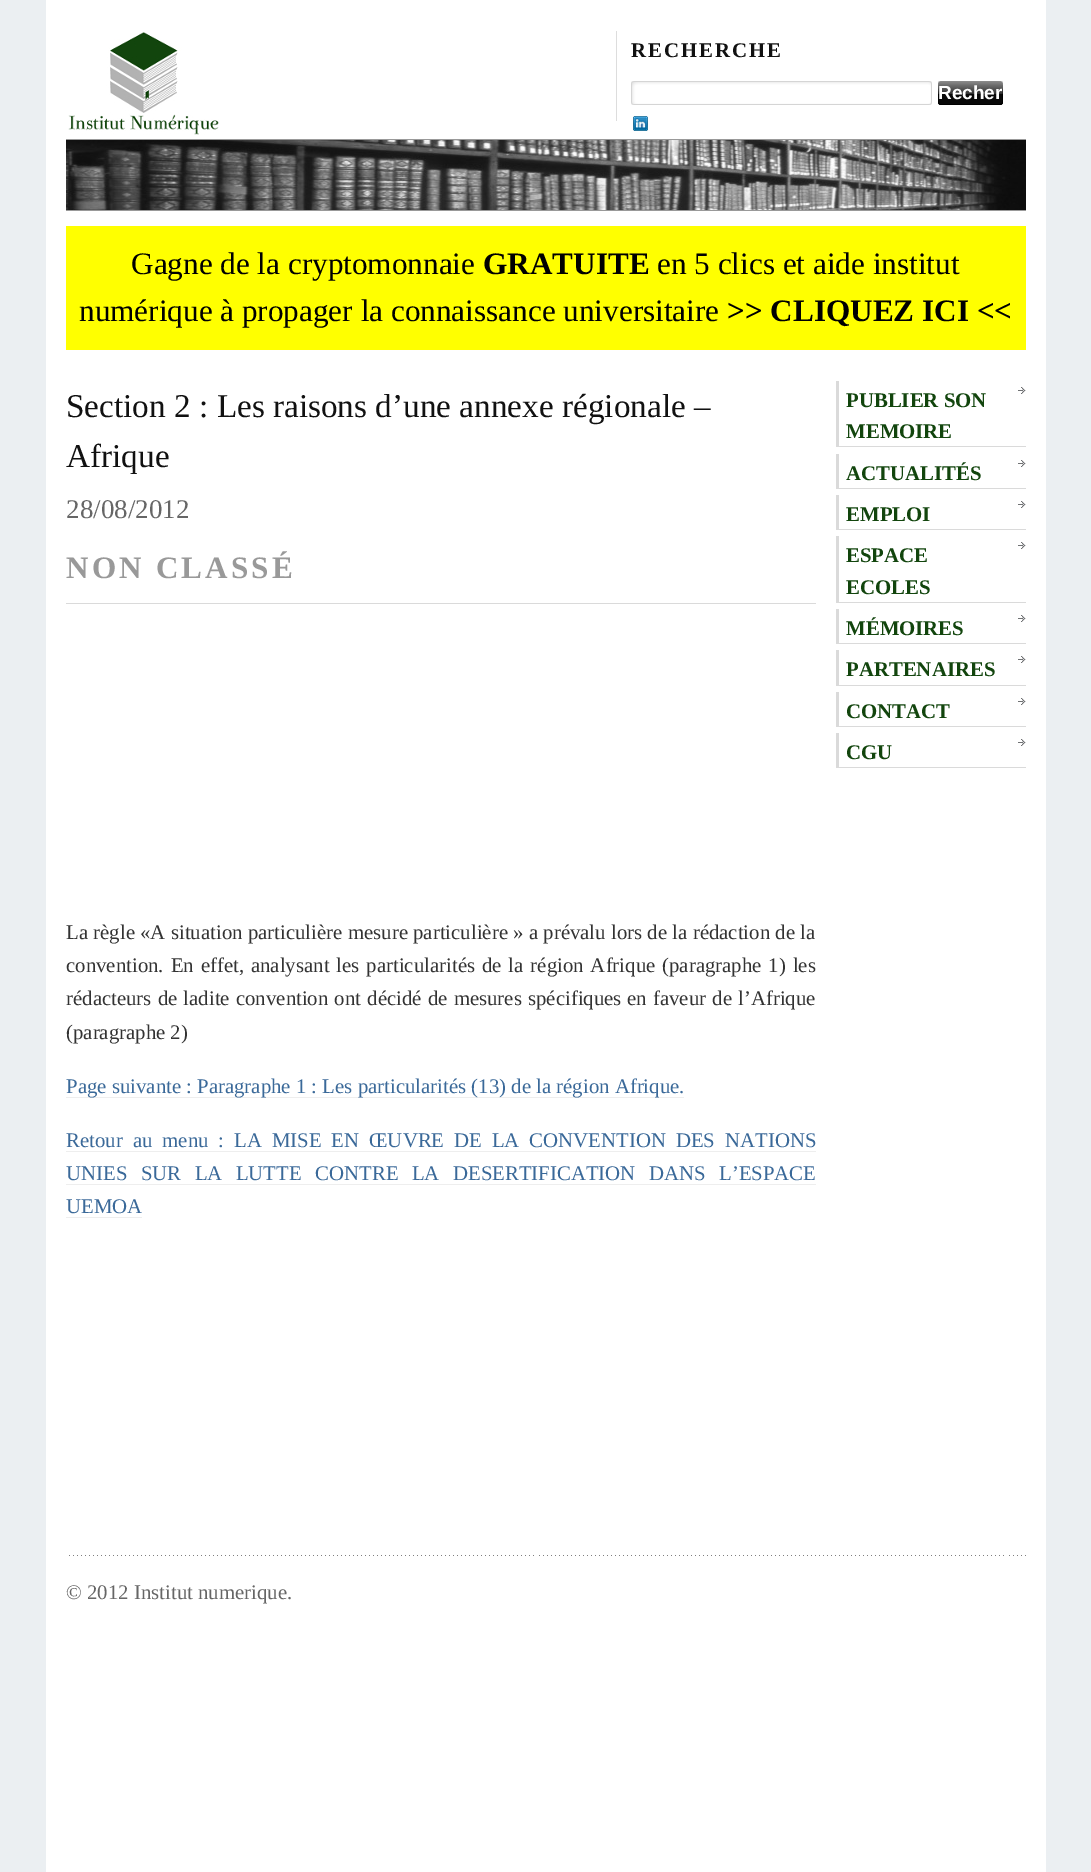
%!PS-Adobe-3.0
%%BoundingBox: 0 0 1091 1872
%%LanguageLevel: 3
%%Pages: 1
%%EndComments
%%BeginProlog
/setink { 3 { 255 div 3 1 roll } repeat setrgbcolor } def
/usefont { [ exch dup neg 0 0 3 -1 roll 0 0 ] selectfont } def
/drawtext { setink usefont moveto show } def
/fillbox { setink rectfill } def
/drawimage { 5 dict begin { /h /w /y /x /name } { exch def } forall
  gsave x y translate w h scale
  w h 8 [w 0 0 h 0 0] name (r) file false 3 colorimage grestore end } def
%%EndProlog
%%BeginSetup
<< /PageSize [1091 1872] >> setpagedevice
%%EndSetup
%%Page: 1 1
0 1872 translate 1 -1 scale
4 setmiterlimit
0 0 1091 1872 235 239 242 fillbox
46 0 1000 1872 255 255 255 fillbox
66 139 960 1 153 153 153 fillbox
(assets/img1.rgb) 68 32 151 103 drawimage
616 31 1 90 221 221 221 fillbox
/LiberationSerif-Bold 20.8 usefont
17 17 17 setink
631 57 moveto 2 0 (RECHERCHE) ashow
(assets/img2.rgb) 631 81 301 24 drawimage
(assets/img3.rgb) 938 81 65 24 drawimage
(Recher) 938 99 /LiberationSans-Bold 19 255 255 255 drawtext
(assets/img4.rgb) 633 116 15 15 drawimage
(assets/img5.rgb) 66 140 960 70 drawimage
66 210 960 1 153 153 153 fillbox
66 226 960 124 255 255 0 fillbox
(Gagne de la cryptomonnaie) 131 274 /LiberationSerif-Regular 31.2 0 0 0 drawtext
(GRATUITE) 483 274 /LiberationSerif-Bold 31.2 0 0 0 drawtext
(en 5 clics et aide institut) 657 274 /LiberationSerif-Regular 31.2 0 0 0 drawtext
(numérique à propager la connaissance universitaire) 79 321 /LiberationSerif-Regular 31.2 0 0 0 drawtext
(>> CLIQUEZ ICI <<) 727 321 /LiberationSerif-Bold 31.2 0 0 0 drawtext
(Section 2 : Les raisons d’une annexe régionale –) 66 417 /LiberationSerif-Regular 33.25 17 17 17 drawtext
(Afrique) 66 467 /LiberationSerif-Regular 33.25 17 17 17 drawtext
(28/08/2012) 66 518 /LiberationSerif-Regular 27 102 102 102 drawtext
66 603 750 1 218 218 218 fillbox
/LiberationSerif-Bold 31.2 usefont
153 153 153 setink
66 578 moveto 3.1 0 (NON CLASSÉ) ashow
/LiberationSerif-Regular 20.8 usefont
51 51 51 setink
66 939 moveto 0.1 0 32 (La règle «A situation particulière mesure particulière » a prévalu lors de la rédaction de la) widthshow
66 972 moveto 1.75 0 32 (convention. En effet, analysant les particularités de la région Afrique \(paragraphe 1\) les) widthshow
66 1005 moveto 1 0 32 (rédacteurs de ladite convention ont décidé de mesures spécifiques) widthshow
627 1005 moveto 1 0 32 (en faveur de l’Afrique) widthshow
(\(paragraphe 2\)) 66 1039 /LiberationSerif-Regular 20.8 51 51 51 drawtext
66 1097 618 1 238 238 238 fillbox
(Page suivante : Paragraphe 1 : Les particularités \(13\) de la région Afrique.) 66 1093 /LiberationSerif-Regular 20.8 58 105 153 drawtext
66 1147 moveto 4.75 0 32 (Retour au menu : LA MISE EN ŒUVRE DE LA CONVENTION DES NATIONS) widthshow
66 1151 750 1 238 238 238 fillbox
58 105 153 setink
66 1180 moveto 8.25 0 32 (UNIES SUR LA LUTTE CONTRE LA DESERTIFICATION DANS L’ESPACE) widthshow
66 1184 750 1 238 238 238 fillbox
(UEMOA) 66 1213 /LiberationSerif-Regular 20.8 58 105 153 drawtext
66 1217 76 1 238 238 238 fillbox
(assets/img6.rgb) 1018 387 8 7 drawimage
836 446 190 1 218 218 218 fillbox
836 381 3 66 218 218 218 fillbox
(PUBLIER SON) 846 407 /LiberationSerif-Bold 20.8 18 69 13 drawtext
(MEMOIRE) 846 438 /LiberationSerif-Bold 20.8 18 69 13 drawtext
(assets/img6.rgb) 1018 460 8 7 drawimage
836 488 190 1 218 218 218 fillbox
836 454 3 35 218 218 218 fillbox
(ACTUALITÉS) 846 480 /LiberationSerif-Bold 20.8 18 69 13 drawtext
(assets/img6.rgb) 1018 501 8 7 drawimage
836 529 190 1 218 218 218 fillbox
836 495 3 35 218 218 218 fillbox
(EMPLOI) 846 521 /LiberationSerif-Bold 20.8 18 69 13 drawtext
(assets/img6.rgb) 1018 542 8 7 drawimage
836 602 190 1 218 218 218 fillbox
836 536 3 67 218 218 218 fillbox
(ESPACE) 846 562 /LiberationSerif-Bold 20.8 18 69 13 drawtext
(ECOLES) 846 594 /LiberationSerif-Bold 20.8 18 69 13 drawtext
(assets/img6.rgb) 1018 615 8 7 drawimage
836 643 190 1 218 218 218 fillbox
836 609 3 35 218 218 218 fillbox
(MÉMOIRES) 846 635 /LiberationSerif-Bold 20.8 18 69 13 drawtext
(assets/img6.rgb) 1018 656 8 7 drawimage
836 685 190 1 218 218 218 fillbox
836 650 3 36 218 218 218 fillbox
(PARTENAIRES) 846 676 /LiberationSerif-Bold 20.8 18 69 13 drawtext
(assets/img6.rgb) 1018 698 8 7 drawimage
836 726 190 1 218 218 218 fillbox
836 692 3 35 218 218 218 fillbox
(CONTACT) 846 718 /LiberationSerif-Bold 20.8 18 69 13 drawtext
(assets/img6.rgb) 1018 739 8 7 drawimage
836 767 190 1 218 218 218 fillbox
836 733 3 35 218 218 218 fillbox
(CGU) 846 759 /LiberationSerif-Bold 20.8 18 69 13 drawtext
(assets/img7.rgb) 69 1555 957 1 drawimage
(© 2012 Institut numerique.) 66 1599 /LiberationSerif-Regular 20.8 102 102 102 drawtext
showpage
%%EOF
